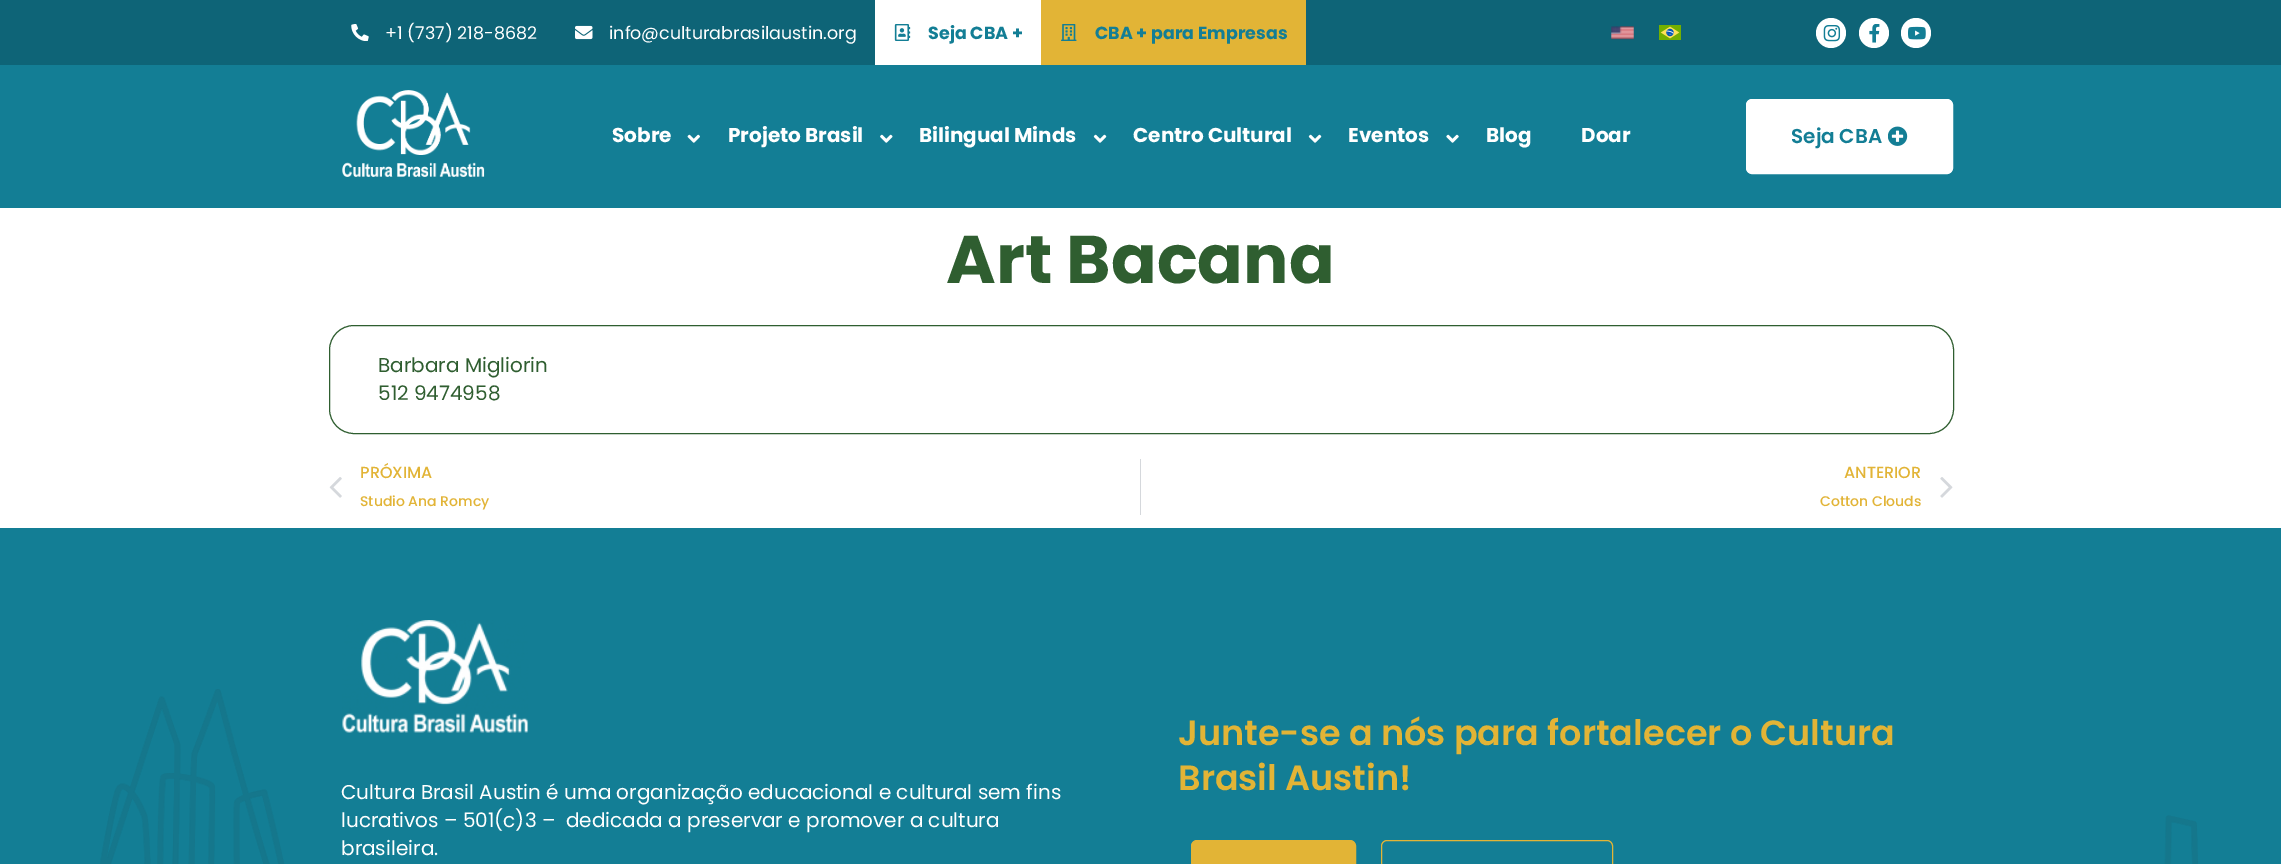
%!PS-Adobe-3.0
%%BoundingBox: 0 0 2281 864
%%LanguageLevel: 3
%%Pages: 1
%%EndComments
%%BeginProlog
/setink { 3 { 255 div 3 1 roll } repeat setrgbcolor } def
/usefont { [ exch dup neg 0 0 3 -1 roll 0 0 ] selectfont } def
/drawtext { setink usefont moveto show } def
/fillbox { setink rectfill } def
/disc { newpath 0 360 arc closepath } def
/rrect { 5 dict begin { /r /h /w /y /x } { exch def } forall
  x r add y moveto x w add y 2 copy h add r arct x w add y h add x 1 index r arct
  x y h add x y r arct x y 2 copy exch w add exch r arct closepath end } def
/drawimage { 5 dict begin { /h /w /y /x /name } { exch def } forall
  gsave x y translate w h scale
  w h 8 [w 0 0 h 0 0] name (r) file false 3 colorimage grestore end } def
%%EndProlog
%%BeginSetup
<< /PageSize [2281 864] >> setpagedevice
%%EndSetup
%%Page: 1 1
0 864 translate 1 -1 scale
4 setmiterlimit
0 0 2281 864 255 255 255 fillbox
0 0 2281 65 14 100 119 fillbox
(assets/img1.rgb) 351 24 18 17 drawimage
(+1 \(737\) 218-8682) 385 39 /Poppins-Regular 17.5 255 255 255 drawtext
(assets/img2.rgb) 575 25 18 15 drawimage
(info@culturabrasilaustin.org) 609 39 /Poppins-Regular 17.5 255 255 255 drawtext
875 0 166 65 255 255 255 fillbox
(assets/img3.rgb) 894 24 17 17 drawimage
(Seja CBA +) 928 39 /Poppins-Bold 17.5 19 126 149 drawtext
1041 0 265 65 226 180 54 fillbox
(assets/img4.rgb) 1061 24 16 17 drawimage
(CBA + para Empresas) 1095 39 /Poppins-Bold 17.5 19 126 149 drawtext
(assets/img5.rgb) 1611 26 23 14 drawimage
(assets/img6.rgb) 1659 25 22 15 drawimage
255 255 255 setink
1831 33 15 disc fill
(assets/img7.rgb) 1823 25 18 17 drawimage
1874 33 15 disc fill
(assets/img8.rgb) 1869 24 11 19 drawimage
1916 33 15 disc fill
(assets/img9.rgb) 1908 26 18 14 drawimage
0 65 2281 143 19 126 149 fillbox
(assets/img10.rgb) 342 90 143 87 drawimage
(Sobre) 612 142 /Poppins-Bold 20 255 255 255 drawtext
(assets/img11.rgb) 687 134 13 9 drawimage
(Projeto Brasil) 728 142 /Poppins-Bold 20 255 255 255 drawtext
(assets/img12.rgb) 880 134 13 9 drawimage
(Bilingual Minds) 919 142 /Poppins-Bold 20 255 255 255 drawtext
(assets/img13.rgb) 1093 134 14 9 drawimage
(Centro Cultural) 1133 142 /Poppins-Bold 20 255 255 255 drawtext
(assets/img13.rgb) 1308 134 14 9 drawimage
(Eventos) 1348 142 /Poppins-Bold 20 255 255 255 drawtext
(assets/img14.rgb) 1446 134 13 9 drawimage
(Blog) 1486 142 /Poppins-Bold 20 255 255 255 drawtext
(Doar) 1581 142 /Poppins-Bold 20 255 255 255 drawtext
1746.5 99.5 206 74 5.5 rrect gsave fill grestore
stroke
(Seja CBA) 1791 143 /Poppins-SemiBold 20 19 126 149 drawtext
(assets/img15.rgb) 1888 126 20 20 drawimage
(Art Bacana) 946 283 /Poppins-Bold 67.5 47 94 48 drawtext
329.5 325.5 1624 108 24.5 rrect stroke
(Barbara Migliorin) 378 372 /Poppins-Regular 20 47 94 48 drawtext
(512 9474958) 378 400 /Poppins-Regular 20 47 94 48 drawtext
(assets/img16.rgb) 329 477 13 21 drawimage
(PRÓXIMA) 360 478 /Poppins-Medium 16 226 180 54 drawtext
(Studio Ana Romcy) 360 506 /Poppins-Medium 14 226 180 54 drawtext
1140 459 1 56 213 216 220 fillbox
(ANTERIOR) 1844 478 /Poppins-Medium 16 226 180 54 drawtext
(Cotton Clouds) 1820 506 /Poppins-Medium 14 226 180 54 drawtext
(assets/img17.rgb) 1940 477 13 21 drawimage
0 528 2281 336 19 126 149 fillbox
(assets/img18.rgb) 100 689 2098 175 drawimage
(Junte-se a nós para fortalecer o Cultura) 1178 745 /Poppins-SemiBold 35 226 180 54 drawtext
(Brasil Austin!) 1178 790 /Poppins-SemiBold 35 226 180 54 drawtext
1191.5 840.5 164 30 5.5 rrect gsave fill grestore
stroke
1381.5 840.5 231 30 5.5 rrect stroke
(assets/img19.rgb) 342 620 187 113 drawimage
(Cultura Brasil Austin é uma organização educacional e cultural sem fins) 341 799 /Poppins-Regular 20 255 255 255 drawtext
(lucrativos – 501\(c\)3 –  dedicada a preservar e promover a cultura) 341 827 /Poppins-Regular 20 255 255 255 drawtext
(brasileira.) 341 855 /Poppins-Regular 20 255 255 255 drawtext
showpage
%%EOF
